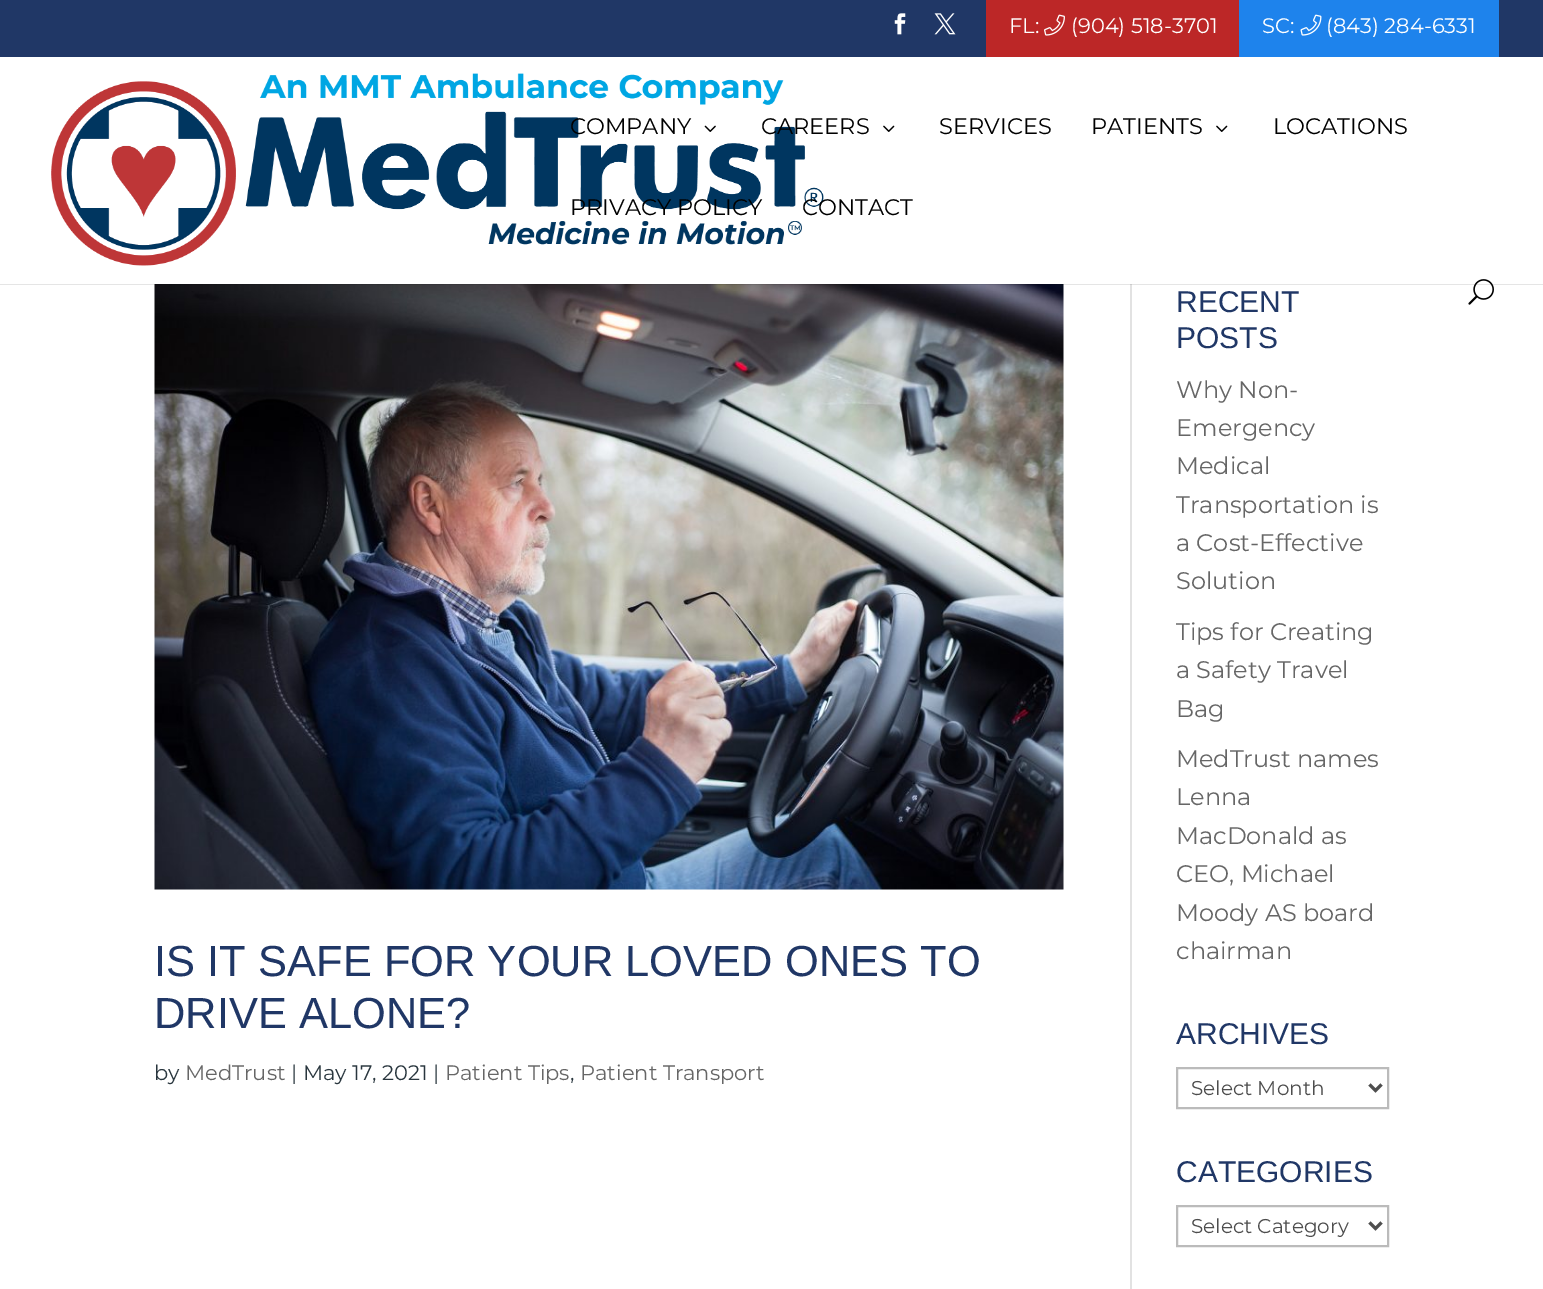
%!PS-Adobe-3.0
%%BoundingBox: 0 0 1543 1289
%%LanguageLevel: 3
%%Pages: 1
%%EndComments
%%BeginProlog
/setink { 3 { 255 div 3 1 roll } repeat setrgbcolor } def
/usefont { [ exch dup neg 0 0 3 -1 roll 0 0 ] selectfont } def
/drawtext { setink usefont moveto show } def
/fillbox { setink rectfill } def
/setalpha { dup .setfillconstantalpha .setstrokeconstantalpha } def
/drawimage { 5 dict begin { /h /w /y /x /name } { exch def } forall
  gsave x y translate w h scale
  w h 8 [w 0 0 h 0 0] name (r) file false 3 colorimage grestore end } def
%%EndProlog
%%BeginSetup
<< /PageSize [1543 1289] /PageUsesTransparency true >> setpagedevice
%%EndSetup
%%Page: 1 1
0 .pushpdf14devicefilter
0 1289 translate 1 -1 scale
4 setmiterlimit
0 0 1543 1289 255 255 255 fillbox
0 0 1543 57 32 55 102 fillbox
(assets/img1.rgb) 894 13 12 22 drawimage
(assets/img2.rgb) 934 13 22 22 drawimage
986 0 253 57 188 39 39 fillbox
(FL:) 1009 33 /Montserrat-Regular 21 255 255 255 drawtext
(assets/img3.rgb) 1044 14 21 22 drawimage
(\(904\) 518-3701) 1071 33 /Montserrat-Regular 21 255 255 255 drawtext
1239 0 260 57 30 131 236 fillbox
(SC:) 1262 33 /Montserrat-Regular 21 255 255 255 drawtext
(assets/img4.rgb) 1300 14 22 22 drawimage
(\(843\) 284-6331) 1326 33 /Montserrat-Regular 21 255 255 255 drawtext
1130 284 2 1005 226 226 226 fillbox
(assets/img9.rgb) 154 284 910 606 drawimage
0.1 setalpha
0 0 0 setink
0 284 moveto 0 285 lineto 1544 285 lineto 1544 59 lineto 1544 284 lineto closepath fill
1 setalpha
(assets/img5.rgb) 51 73 773 193 drawimage
(COMPANY) 570 134 /Montserrat-Regular 22.5 0 0 0 drawtext
(assets/img6.rgb) 704 125 12 7 drawimage
(CAREERS) 761 134 /Montserrat-Regular 22.5 0 0 0 drawtext
(assets/img7.rgb) 883 125 12 7 drawimage
(SERVICES) 939 134 /Montserrat-Regular 22.5 0 0 0 drawtext
(PATIENTS) 1091 134 /Montserrat-Regular 22.5 0 0 0 drawtext
(assets/img7.rgb) 1216 125 12 7 drawimage
(LOCATIONS) 1273 134 /Montserrat-Regular 22.5 0 0 0 drawtext
(PRIVACY POLICY) 570 215 /Montserrat-Regular 22.5 0 0 0 drawtext
(CONTACT) 802 215 /Montserrat-Regular 22.5 0 0 0 drawtext
(assets/img8.rgb) 1468 279 26 26 drawimage
(IS IT SAFE FOR YOUR LOVED ONES TO) 154 976 /LiberationSans-Regular 43.5 32 55 102 drawtext
(DRIVE ALONE?) 154 1028 /LiberationSans-Regular 43.5 32 55 102 drawtext
(by) 154 1080 /Montserrat-Regular 21 41 54 62 drawtext
(MedTrust) 185 1080 /Montserrat-Regular 21 102 102 102 drawtext
(| May 17, 2021 |) 291 1080 /Montserrat-Regular 21 41 54 62 drawtext
(Patient Tips) 445 1080 /Montserrat-Regular 21 102 102 102 drawtext
(,) 570 1080 /Montserrat-Regular 21 41 54 62 drawtext
(Patient Transport) 580 1080 /Montserrat-Regular 21 102 102 102 drawtext
(RECENT) 1176 312 /LiberationSans-Regular 30 32 55 102 drawtext
(POSTS) 1176 348 /LiberationSans-Regular 30 32 55 102 drawtext
(Why Non-) 1176 398 /Montserrat-Regular 24 102 102 102 drawtext
(Emergency) 1176 436 /Montserrat-Regular 24 102 102 102 drawtext
(Medical) 1176 474 /Montserrat-Regular 24 102 102 102 drawtext
(Transportation is) 1176 513 /Montserrat-Regular 24 102 102 102 drawtext
(a Cost-Effective) 1176 551 /Montserrat-Regular 24 102 102 102 drawtext
(Solution) 1176 589 /Montserrat-Regular 24 102 102 102 drawtext
(Tips for Creating) 1176 640 /Montserrat-Regular 24 102 102 102 drawtext
(a Safety Travel) 1176 678 /Montserrat-Regular 24 102 102 102 drawtext
(Bag) 1176 717 /Montserrat-Regular 24 102 102 102 drawtext
(MedTrust names) 1176 767 /Montserrat-Regular 24 102 102 102 drawtext
(Lenna) 1176 805 /Montserrat-Regular 24 102 102 102 drawtext
(MacDonald as) 1176 844 /Montserrat-Regular 24 102 102 102 drawtext
(CEO, Michael) 1176 882 /Montserrat-Regular 24 102 102 102 drawtext
(Moody AS board) 1176 921 /Montserrat-Regular 24 102 102 102 drawtext
(chairman) 1176 959 /Montserrat-Regular 24 102 102 102 drawtext
(ARCHIVES) 1176 1044 /LiberationSans-Regular 30 32 55 102 drawtext
187 187 187 setink
2 setlinewidth
1177 1068 211 40 rectstroke
78 78 78 setink
3 setlinewidth
1369.5 1084.5 moveto 1375.5 1090.5 lineto 1381.5 1084.5 lineto stroke
(Select Month) 1191 1095 /Montserrat-Regular 20 78 78 78 drawtext
(CATEGORIES) 1176 1182 /LiberationSans-Regular 30 32 55 102 drawtext
187 187 187 setink
2 setlinewidth
1177 1206 211 40 rectstroke
78 78 78 setink
3 setlinewidth
1369.5 1222.5 moveto 1375.5 1228.5 lineto 1381.5 1222.5 lineto stroke
(Select Category) 1191 1233 /Montserrat-Regular 20 78 78 78 drawtext
.poppdf14devicefilter showpage
%%EOF
